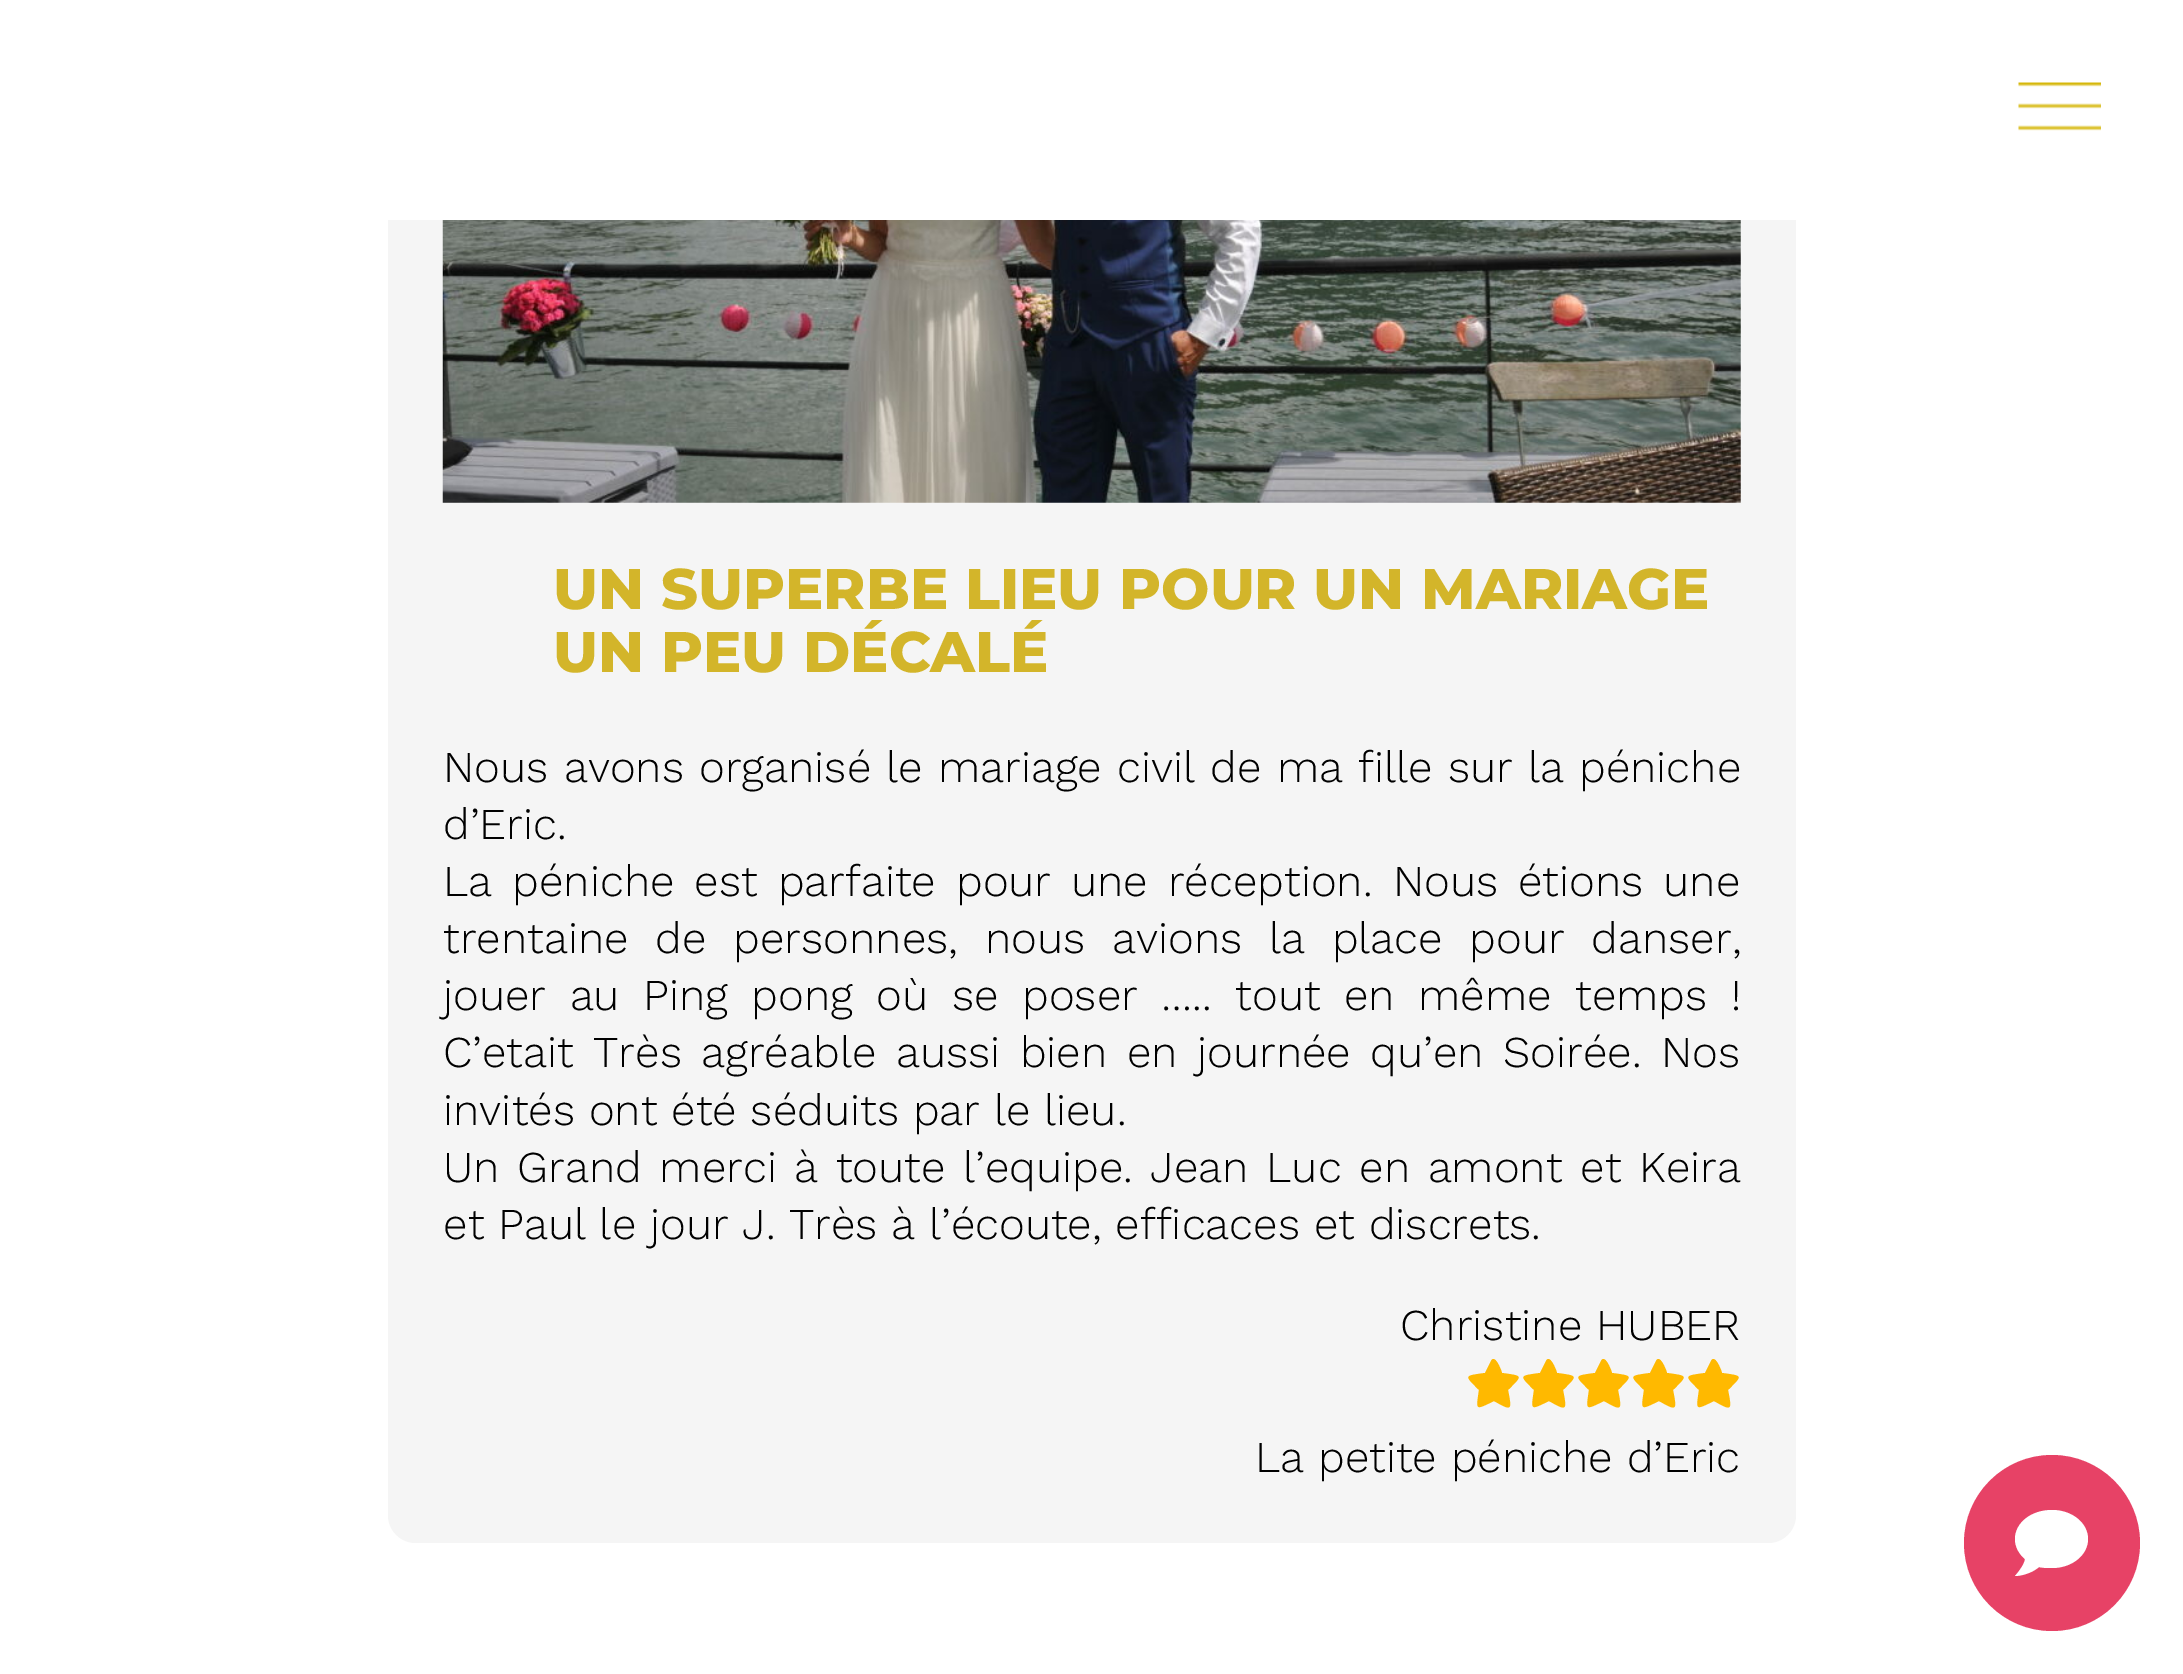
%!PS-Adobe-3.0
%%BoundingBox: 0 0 2183 1674
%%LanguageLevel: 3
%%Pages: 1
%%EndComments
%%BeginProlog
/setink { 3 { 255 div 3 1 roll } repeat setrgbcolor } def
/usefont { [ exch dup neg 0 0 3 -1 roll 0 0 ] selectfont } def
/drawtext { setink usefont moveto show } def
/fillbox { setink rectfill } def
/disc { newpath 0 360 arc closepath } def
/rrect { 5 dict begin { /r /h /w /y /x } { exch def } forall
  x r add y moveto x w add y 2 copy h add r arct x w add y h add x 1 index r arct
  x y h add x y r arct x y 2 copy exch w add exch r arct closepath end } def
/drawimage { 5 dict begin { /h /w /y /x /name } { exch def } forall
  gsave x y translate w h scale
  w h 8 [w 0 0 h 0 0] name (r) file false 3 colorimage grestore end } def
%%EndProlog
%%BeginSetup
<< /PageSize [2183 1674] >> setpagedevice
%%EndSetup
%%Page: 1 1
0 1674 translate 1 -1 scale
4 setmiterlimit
0 0 2183 1674 255 255 255 fillbox
245 245 245 setink
388 -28 1408 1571 28 rrect fill
388 0 1408 220 255 255 255 fillbox
(assets/img1.rgb) 2018 82 83 49 drawimage
(assets/img2.rgb) 442 220 1299 283 drawimage
(UN SUPERBE LIEU POUR UN MARIAGE) 553 609 /Montserrat-ExtraBold 57.2 211 181 42 drawtext
(UN PEU DÉCALÉ) 553 672 /Montserrat-ExtraBold 57.2 211 181 42 drawtext
/WorkSans-Light 44 usefont
0 0 0 setink
443 782 moveto 1.4 0 32 (Nous avons organisé le mariage civil de ma fille sur la péniche) widthshow
(d’Eric.) 443 839 /WorkSans-Light 44 0 0 0 drawtext
443 896 moveto 6.25 0 32 (La péniche est parfaite pour une réception. Nous étions une) widthshow
443 953 moveto 13 0 32 (trentaine de personnes, nous avions la place pour danser,) widthshow
443 1010 moveto 9.75 0 32 (jouer au Ping pong où se poser ….. tout en même temps !) widthshow
443 1067 moveto 5.75 0 32 (C’etait Très agréable aussi bien en journée qu’en Soirée. Nos) widthshow
(invités ont été séduits par le lieu.) 443 1125 /WorkSans-Light 44 0 0 0 drawtext
443 1182 moveto 3.9 0 32 (Un Grand merci à toute l’equipe. Jean Luc en amont et Keira) widthshow
(et Paul le jour J. Très à l’écoute, efficaces et discrets.) 443 1239 /WorkSans-Light 44 0 0 0 drawtext
(Christine HUBER) 1400 1340 /WorkSans-Light 44 0 0 0 drawtext
255 185 0 setink
1491 1361 moveto 1485 1373 lineto 1464 1376 1464 1375 1479 1390 curveto 1476 1411 1475 1410 1494 1401 curveto 1512 1411 1512 1411 1508 1390 curveto 1523 1375 1523 1376 1502 1373 curveto 1502 1372 1495 1353 1491 1361 curveto closepath fill
1546 1361 moveto 1540 1373 lineto 1519 1376 1519 1375 1534 1390 curveto 1531 1411 1530 1410 1549 1401 curveto 1567 1411 1567 1411 1563 1390 curveto 1578 1375 1578 1376 1557 1373 curveto 1557 1372 1550 1353 1546 1361 curveto closepath fill
1601 1361 moveto 1595 1373 lineto 1574 1376 1574 1375 1589 1390 curveto 1586 1411 1585 1410 1604 1401 curveto 1622 1411 1622 1411 1618 1390 curveto 1633 1375 1633 1376 1612 1373 curveto 1612 1372 1605 1353 1601 1361 curveto closepath fill
1656 1361 moveto 1650 1373 lineto 1629 1376 1629 1375 1644 1390 curveto 1641 1411 1640 1410 1659 1401 curveto 1677 1411 1677 1411 1673 1390 curveto 1688 1375 1688 1376 1667 1373 curveto 1667 1372 1660 1353 1656 1361 curveto closepath fill
1711 1361 moveto 1705 1373 lineto 1684 1376 1684 1375 1699 1390 curveto 1696 1411 1695 1410 1714 1401 curveto 1732 1411 1732 1411 1728 1390 curveto 1743 1375 1743 1376 1722 1373 curveto 1722 1372 1715 1353 1711 1361 curveto closepath fill
(La petite péniche d’Eric) 1255 1472 /WorkSans-Light 44 0 0 0 drawtext
231 66 102 setink
2052 1543 88 disc fill
255 255 255 setink
2052 1510 moveto 2072 1510 2088 1523 2088 1539 curveto 2088 1555 2072 1568 2052 1568 curveto 2047 1568 2043 1568 2039 1567 curveto 2028 1576 2015 1576 2015 1576 curveto 2023 1567 2025 1561 2025 1559 curveto 2019 1554 2015 1547 2015 1539 curveto 2015 1523 2031 1510 2052 1510 curveto fill
showpage
%%EOF
